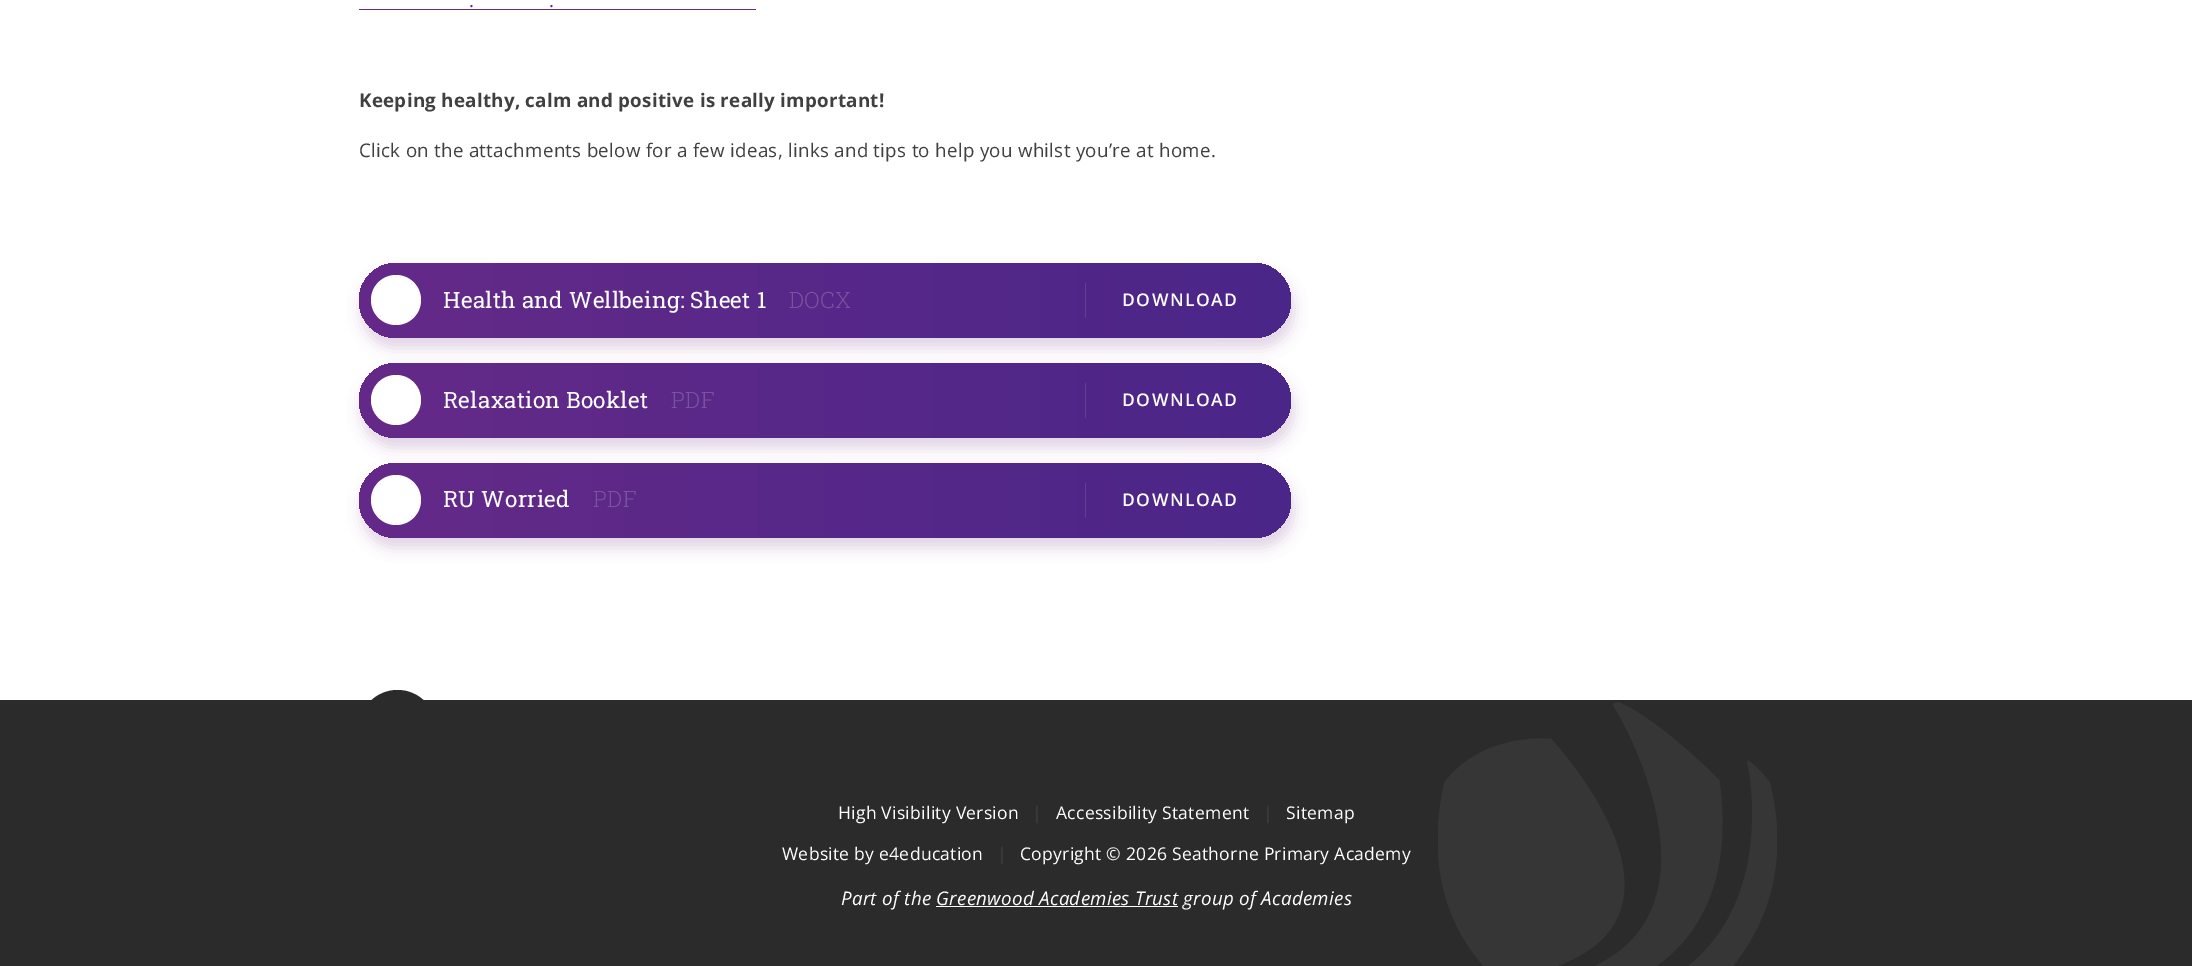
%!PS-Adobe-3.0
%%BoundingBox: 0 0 2192 966
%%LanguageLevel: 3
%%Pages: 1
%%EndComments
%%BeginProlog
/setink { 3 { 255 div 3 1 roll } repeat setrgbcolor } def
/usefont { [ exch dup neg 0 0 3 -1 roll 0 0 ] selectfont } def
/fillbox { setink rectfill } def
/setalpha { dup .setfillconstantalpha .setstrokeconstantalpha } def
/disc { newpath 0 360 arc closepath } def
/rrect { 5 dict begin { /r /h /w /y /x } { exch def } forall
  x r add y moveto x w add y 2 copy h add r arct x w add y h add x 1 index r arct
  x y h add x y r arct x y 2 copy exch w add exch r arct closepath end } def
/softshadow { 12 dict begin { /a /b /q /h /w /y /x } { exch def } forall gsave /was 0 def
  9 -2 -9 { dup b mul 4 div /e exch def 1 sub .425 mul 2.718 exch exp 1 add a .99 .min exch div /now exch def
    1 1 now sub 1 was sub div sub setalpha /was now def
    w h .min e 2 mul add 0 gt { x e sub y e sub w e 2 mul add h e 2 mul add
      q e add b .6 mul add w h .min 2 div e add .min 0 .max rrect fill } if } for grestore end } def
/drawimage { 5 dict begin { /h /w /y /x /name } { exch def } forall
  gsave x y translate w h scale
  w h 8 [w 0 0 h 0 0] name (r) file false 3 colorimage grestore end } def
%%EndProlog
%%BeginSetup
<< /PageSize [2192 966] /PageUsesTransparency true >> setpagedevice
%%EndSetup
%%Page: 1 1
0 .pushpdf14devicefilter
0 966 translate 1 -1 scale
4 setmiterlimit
0 0 2192 966 255 255 255 fillbox
/OpenSans-Regular 18.75 usefont
101 42 136 setink
469 7 moveto 0.28 0 (.) ashow
359 9 397 1 101 42 136 fillbox
549 7 moveto 0.28 0 (.) ashow
/OpenSans-Bold 18.75 usefont
64 64 64 setink
359 107 moveto 0.28 0 (Keeping healthy, calm and positive is really important!) ashow
/OpenSans-Regular 18.75 usefont
359 157 moveto 0.28 0 (Click on the attachments below for a few ideas, links and tips to help you whilst you’re at home.) ashow
101 42 136 setink
361 273 933 75 37.5 7 0.2 softshadow
gsave 359 263 932 75 37.5 rrect clip newpath
<< /ShadingType 2 /ColorSpace /DeviceRGB /Coords [359 300 1291 300] /Extend [true true] /Function << /FunctionType 2 /Domain [0 1] /C0 [0.396 0.165 0.533] /C1 [0.29 0.149 0.533] /N 1 >> >> shfill grestore
255 255 255 setink
396 300 25 disc fill
/RobotoSlab-Regular 22.5 usefont
443 308 moveto 0.28 0 (Health and Wellbeing: Sheet 1) ashow
/RobotoSlab-Light 22.5 usefont
121 83 160 setink
789 308 moveto 0.28 0 (DOCX) ashow
1085 283 1 35 98 61 148 fillbox
/OpenSans-SemiBold 17.5 usefont
255 255 255 setink
1122 306 moveto 1.5 0 (DOWNLOAD) ashow
101 42 136 setink
361 373 933 75 37.5 7 0.2 softshadow
gsave 359 363 932 75 37.5 rrect clip newpath
<< /ShadingType 2 /ColorSpace /DeviceRGB /Coords [359 400 1291 400] /Extend [true true] /Function << /FunctionType 2 /Domain [0 1] /C0 [0.396 0.165 0.533] /C1 [0.29 0.149 0.533] /N 1 >> >> shfill grestore
255 255 255 setink
396 400 25 disc fill
/RobotoSlab-Regular 22.5 usefont
443 408 moveto 0.28 0 (Relaxation Booklet) ashow
/RobotoSlab-Light 22.5 usefont
121 83 160 setink
671 408 moveto 0.28 0 (PDF) ashow
1085 383 1 35 98 61 148 fillbox
/OpenSans-SemiBold 17.5 usefont
255 255 255 setink
1122 406 moveto 1.5 0 (DOWNLOAD) ashow
101 42 136 setink
361 473 933 75 37.5 7 0.2 softshadow
gsave 359 463 932 75 37.5 rrect clip newpath
<< /ShadingType 2 /ColorSpace /DeviceRGB /Coords [359 500 1291 500] /Extend [true true] /Function << /FunctionType 2 /Domain [0 1] /C0 [0.396 0.165 0.533] /C1 [0.29 0.149 0.533] /N 1 >> >> shfill grestore
255 255 255 setink
396 500 25 disc fill
/RobotoSlab-Regular 22.5 usefont
443 507 moveto 0.28 0 (RU Worried) ashow
/RobotoSlab-Light 22.5 usefont
121 83 160 setink
593 507 moveto 0.28 0 (PDF) ashow
1085 483 1 35 98 61 148 fillbox
/OpenSans-SemiBold 17.5 usefont
255 255 255 setink
1122 506 moveto 1.5 0 (DOWNLOAD) ashow
0 700 2192 266 43 43 43 fillbox
359 690 77 78 38.5 rrect fill
/OpenSans-Regular 17.5 usefont
255 255 255 setink
838 819 moveto 0.28 0 (High Visibility Version) ashow
64 64 64 setink
1032 819 moveto 0.28 0 (|) ashow
255 255 255 setink
1056 819 moveto 0.28 0 (Accessibility Statement) ashow
64 64 64 setink
1263 819 moveto 0.28 0 (|) ashow
255 255 255 setink
1286 819 moveto 0.28 0 (Sitemap) ashow
782 860 moveto 0.28 0 (Website by e4education) ashow
64 64 64 setink
997 860 moveto 0.28 0 (|) ashow
255 255 255 setink
1020 860 moveto 0.28 0 (Copyright © 2026 Seathorne Primary Academy) ashow
(assets/img1.rgb) 1438 702 339 264 drawimage
/OpenSans-Italic 18.75 usefont
841 905 moveto 0.28 0 (Part of the Greenwood Academies Trust group of Academies) ashow
936 906 242 1 255 255 255 fillbox
.poppdf14devicefilter showpage
%%EOF
